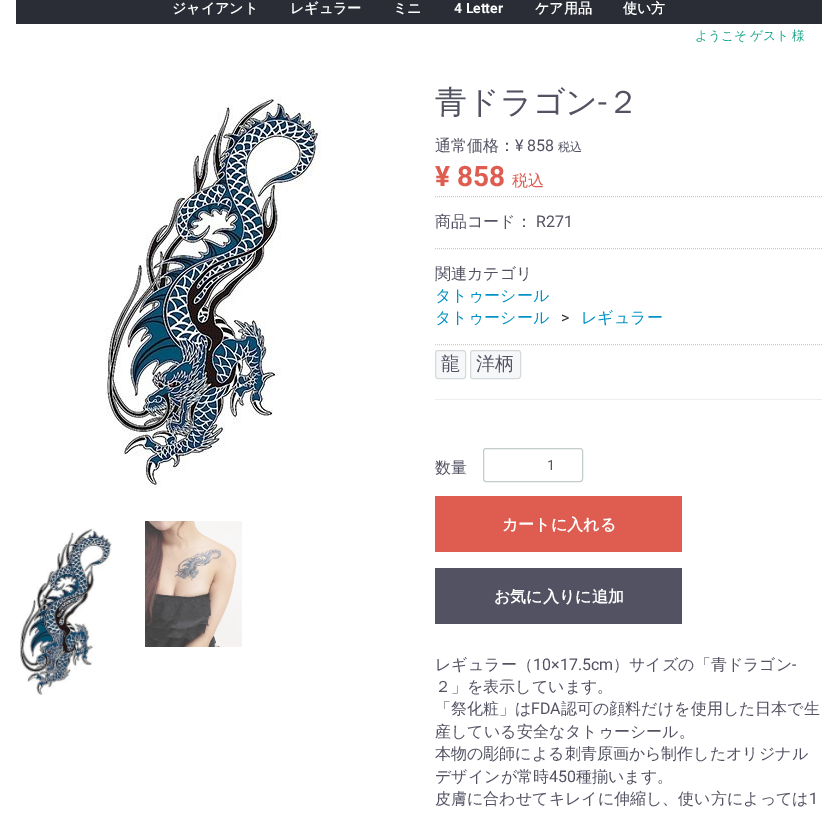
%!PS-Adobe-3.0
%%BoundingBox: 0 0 838 823
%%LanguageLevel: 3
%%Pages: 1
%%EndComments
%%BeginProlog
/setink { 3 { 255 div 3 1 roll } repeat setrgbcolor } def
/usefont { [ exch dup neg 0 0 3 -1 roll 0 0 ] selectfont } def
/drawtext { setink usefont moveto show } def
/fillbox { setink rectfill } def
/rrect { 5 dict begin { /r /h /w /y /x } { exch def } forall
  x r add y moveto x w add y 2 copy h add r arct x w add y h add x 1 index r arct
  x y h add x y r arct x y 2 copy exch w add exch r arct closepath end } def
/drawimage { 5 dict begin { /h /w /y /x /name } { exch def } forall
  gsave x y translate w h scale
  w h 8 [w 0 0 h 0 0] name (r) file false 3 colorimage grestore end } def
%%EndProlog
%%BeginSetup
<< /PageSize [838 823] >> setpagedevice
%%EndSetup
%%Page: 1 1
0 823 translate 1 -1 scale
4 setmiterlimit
0 0 838 823 255 255 255 fillbox
16 0 806 24 43 45 54 fillbox
(ジャイアント) 172 13 /WenQuanYiZenHei-Bold 14 255 255 255 drawtext
(レギュラー) 290 13 /WenQuanYiZenHei-Bold 14 255 255 255 drawtext
(ミニ) 393 13 /WenQuanYiZenHei-Bold 14 255 255 255 drawtext
(4 Letter) 454 13 /Roboto-Bold 14 255 255 255 drawtext
(ケア用品) 535 13 /WenQuanYiZenHei-Bold 14 255 255 255 drawtext
(使い方) 623 13 /WenQuanYiZenHei-Bold 14 255 255 255 drawtext
/WenQuanYiZenHei-Medium 12.75 usefont
24 166 137 setink
695 40 moveto -1 0 32 (ようこそ ゲスト 様) widthshow
(assets/img1.rgb) 105 96 216 392 drawimage
(assets/img2.rgb) 20 528 92 167 drawimage
(assets/img3.rgb) 145 521 97 126 drawimage
(青ドラゴン) 435 113 /WenQuanYiZenHei-Medium 32 82 82 99 drawtext
(-) 598 113 /Roboto-Regular 32 82 82 99 drawtext
(２) 607 113 /WenQuanYiZenHei-Medium 32 82 82 99 drawtext
(通常価格：) 435 151 /WenQuanYiZenHei-Medium 16 82 82 99 drawtext
(¥ 858) 515 151 /Roboto-Regular 16 82 82 99 drawtext
(税込) 558 151 /WenQuanYiZenHei-Medium 12 82 82 99 drawtext
(¥ 858) 435 186 /Roboto-Bold 28 222 93 80 drawtext
(税込) 512 186 /WenQuanYiZenHei-Medium 16 222 93 80 drawtext
204 204 204 setink
[1 1] 0 setdash
435 196.5 moveto 822 196.5 lineto stroke
(商品コード：) 435 227 /WenQuanYiZenHei-Medium 16 82 82 99 drawtext
(R271) 536 227 /Roboto-Regular 16 82 82 99 drawtext
204 204 204 setink
435 248.5 moveto 822 248.5 lineto stroke
435 344.5 moveto 822 344.5 lineto stroke
(関連カテゴリ) 435 279 /WenQuanYiZenHei-Medium 16 82 82 99 drawtext
(タトゥーシール) 435 301 /WenQuanYiZenHei-Medium 16 0 146 196 drawtext
(タトゥーシール) 435 323 /WenQuanYiZenHei-Medium 16 0 146 196 drawtext
(>) 561 323 /Roboto-Regular 16 51 51 51 drawtext
(レギュラー) 581 323 /WenQuanYiZenHei-Medium 16 0 146 196 drawtext
245 247 248 setink
435.5 350.5 30 28 2.5 rrect gsave fill grestore
215 218 221 setink
[] 0 setdash
stroke
(龍) 441 370 /WenQuanYiZenHei-Medium 19 82 82 99 drawtext
245 247 248 setink
470.5 350.5 50 28 2.5 rrect gsave fill grestore
215 218 221 setink
stroke
(洋柄) 476 370 /WenQuanYiZenHei-Medium 19 82 82 99 drawtext
435 399 387 1 238 238 238 fillbox
(数量) 435 473 /WenQuanYiZenHei-Medium 16 82 82 99 drawtext
196 204 206 setink
483.5 448.5 99 33 2.5 rrect stroke
(1) 547 470 /Roboto-Regular 14 82 82 99 drawtext
435 496 247 56 222 93 80 fillbox
(カートに入れる) 502 530 /WenQuanYiZenHei-Bold 16 255 255 255 drawtext
435 568 247 56 82 82 99 fillbox
(お気に入りに追加) 494 602 /WenQuanYiZenHei-Bold 16 255 255 255 drawtext
(レギュラー（) 435 670 /WenQuanYiZenHei-Medium 16 82 82 99 drawtext
(10×17.5cm) 533 670 /Roboto-Regular 16 82 82 99 drawtext
(）サイズの「青ドラゴン) 613 670 /WenQuanYiZenHei-Medium 16 82 82 99 drawtext
(-) 792 670 /Roboto-Regular 16 82 82 99 drawtext
(２」を表示しています。) 435 692 /WenQuanYiZenHei-Medium 16 82 82 99 drawtext
(「祭化粧」は) 435 714 /WenQuanYiZenHei-Medium 16 82 82 99 drawtext
(FDA) 531 714 /Roboto-Regular 16 82 82 99 drawtext
(認可の顔料だけを使用した日本で生) 561 714 /WenQuanYiZenHei-Medium 16 82 82 99 drawtext
(産している安全なタトゥーシール。) 435 737 /WenQuanYiZenHei-Medium 16 82 82 99 drawtext
(本物の彫師による刺青原画から制作したオリジナル) 435 759 /WenQuanYiZenHei-Medium 16 82 82 99 drawtext
(デザインが常時) 435 782 /WenQuanYiZenHei-Medium 16 82 82 99 drawtext
(450) 549 782 /Roboto-Regular 16 82 82 99 drawtext
(種揃います。) 576 782 /WenQuanYiZenHei-Medium 16 82 82 99 drawtext
(皮膚に合わせてキレイに伸縮し、使い方によっては) 435 804 /WenQuanYiZenHei-Medium 16 82 82 99 drawtext
(1) 809 804 /Roboto-Regular 16 82 82 99 drawtext
showpage
%%EOF
